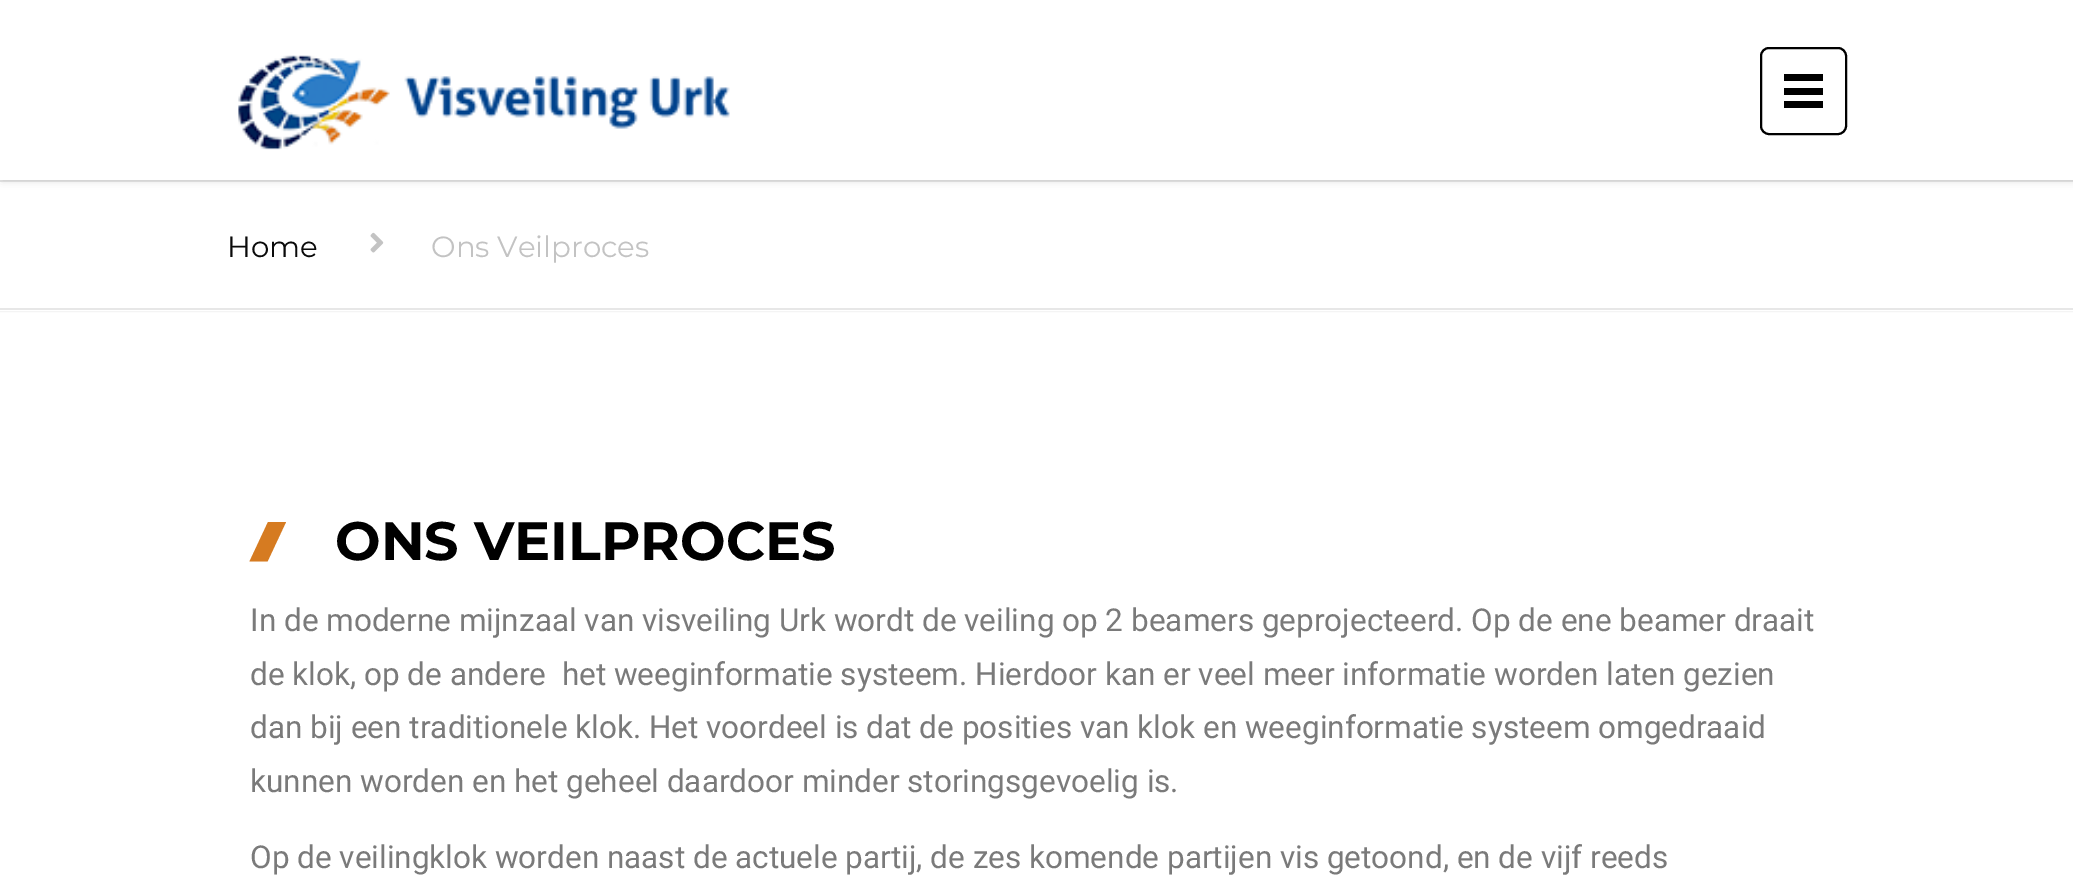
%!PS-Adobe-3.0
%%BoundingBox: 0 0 2073 878
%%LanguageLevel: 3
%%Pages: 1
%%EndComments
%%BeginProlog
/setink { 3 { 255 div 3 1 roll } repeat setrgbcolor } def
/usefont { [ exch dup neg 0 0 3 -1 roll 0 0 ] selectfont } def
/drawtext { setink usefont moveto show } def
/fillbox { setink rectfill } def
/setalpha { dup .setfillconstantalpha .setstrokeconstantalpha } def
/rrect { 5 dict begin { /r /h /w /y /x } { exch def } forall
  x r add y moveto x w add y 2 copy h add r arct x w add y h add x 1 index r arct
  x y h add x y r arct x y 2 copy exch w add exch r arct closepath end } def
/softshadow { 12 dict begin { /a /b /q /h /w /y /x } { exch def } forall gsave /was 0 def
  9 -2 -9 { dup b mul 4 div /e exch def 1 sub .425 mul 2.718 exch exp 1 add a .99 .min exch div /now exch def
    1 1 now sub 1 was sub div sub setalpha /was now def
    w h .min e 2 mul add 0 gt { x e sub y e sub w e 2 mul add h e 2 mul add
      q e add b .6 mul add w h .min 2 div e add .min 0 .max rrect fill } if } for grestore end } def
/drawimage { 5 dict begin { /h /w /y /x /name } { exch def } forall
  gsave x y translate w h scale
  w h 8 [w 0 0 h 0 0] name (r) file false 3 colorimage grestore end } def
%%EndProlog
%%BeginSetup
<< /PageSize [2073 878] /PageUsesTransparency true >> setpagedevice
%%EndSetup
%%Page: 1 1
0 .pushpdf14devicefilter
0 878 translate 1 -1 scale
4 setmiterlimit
0 0 2073 878 255 255 255 fillbox
gsave
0 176 moveto 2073 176 lineto 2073 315 lineto 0 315 lineto closepath 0 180 moveto 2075 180 lineto 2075 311 lineto 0 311 lineto closepath eoclip newpath
0 0 0 setink
0 180 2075 131 0 1 0.14 softshadow
grestore
0 180 2073 2 231 231 231 fillbox
0 0 0 setink
2 0 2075 180 0 4.5 0.15 softshadow
0 0 2073 180 255 255 255 fillbox
(assets/img1.rgb) 238 55 492 95 drawimage
0 0 0 setink
2 setlinewidth
1761 48 85 86 8 rrect stroke
1784 74 39 7 0 0 0 fillbox
1784 88 39 7 0 0 0 fillbox
1784 101 39 7 0 0 0 fillbox
0 308 2073 2 231 231 231 fillbox
(Home) 227 257 /Montserrat-Regular 29.25 10 10 10 drawtext
(assets/img2.rgb) 370 232 14 21 drawimage
(Ons Veilproces) 431 257 /Montserrat-Regular 29.25 195 195 195 drawtext
214 123 33 setink
268 522 moveto 286 522 lineto 267.5 561.5 lineto 249.5 561.5 lineto closepath fill
(ONS VEILPROCES) 335 560 /Montserrat-Bold 54 0 0 0 drawtext
(In de moderne mijnzaal van visveiling Urk wordt de veiling op 2 beamers geprojecteerd. Op de ene beamer draait) 250 631 /Roboto-Regular 31.5 122 122 122 drawtext
(de klok, op de andere  het weeginformatie systeem. Hierdoor kan er veel meer informatie worden laten gezien) 250 685 /Roboto-Regular 31.5 122 122 122 drawtext
(dan bij een traditionele klok. Het voordeel is dat de posities van klok en weeginformatie systeem omgedraaid) 250 738 /Roboto-Regular 31.5 122 122 122 drawtext
(kunnen worden en het geheel daardoor minder storingsgevoelig is.) 250 792 /Roboto-Regular 31.5 122 122 122 drawtext
(Op de veilingklok worden naast de actuele partij, de zes komende partijen vis getoond, en de vijf reeds) 250 868 /Roboto-Regular 31.5 122 122 122 drawtext
.poppdf14devicefilter showpage
%%EOF
